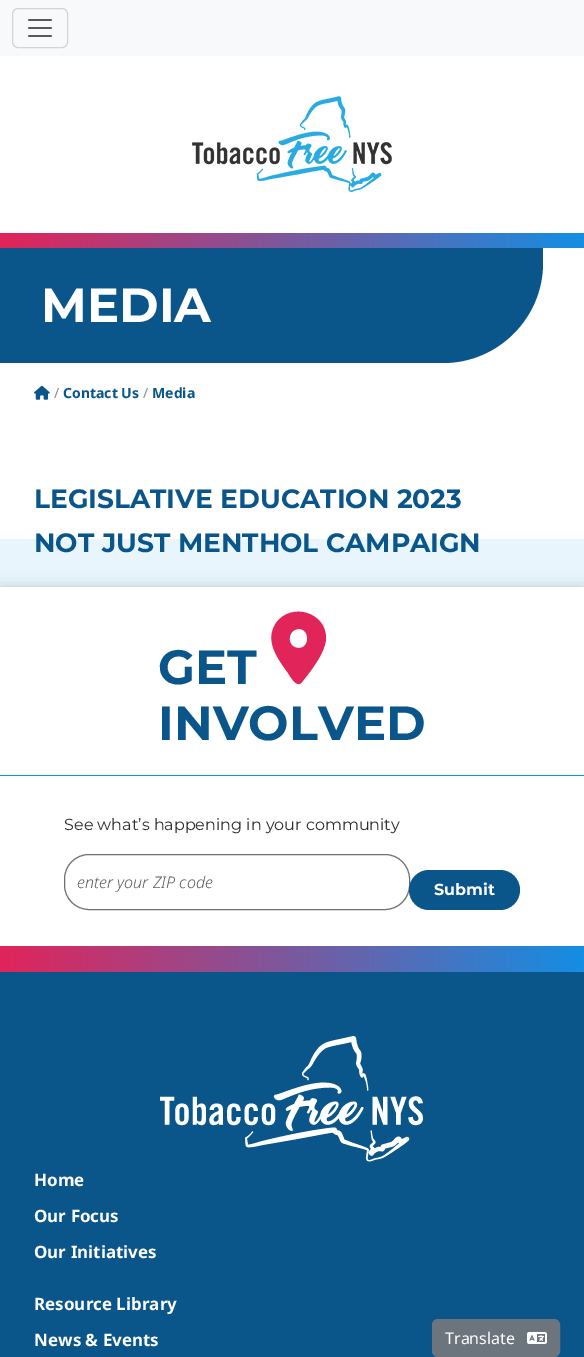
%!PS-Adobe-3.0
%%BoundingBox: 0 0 584 1357
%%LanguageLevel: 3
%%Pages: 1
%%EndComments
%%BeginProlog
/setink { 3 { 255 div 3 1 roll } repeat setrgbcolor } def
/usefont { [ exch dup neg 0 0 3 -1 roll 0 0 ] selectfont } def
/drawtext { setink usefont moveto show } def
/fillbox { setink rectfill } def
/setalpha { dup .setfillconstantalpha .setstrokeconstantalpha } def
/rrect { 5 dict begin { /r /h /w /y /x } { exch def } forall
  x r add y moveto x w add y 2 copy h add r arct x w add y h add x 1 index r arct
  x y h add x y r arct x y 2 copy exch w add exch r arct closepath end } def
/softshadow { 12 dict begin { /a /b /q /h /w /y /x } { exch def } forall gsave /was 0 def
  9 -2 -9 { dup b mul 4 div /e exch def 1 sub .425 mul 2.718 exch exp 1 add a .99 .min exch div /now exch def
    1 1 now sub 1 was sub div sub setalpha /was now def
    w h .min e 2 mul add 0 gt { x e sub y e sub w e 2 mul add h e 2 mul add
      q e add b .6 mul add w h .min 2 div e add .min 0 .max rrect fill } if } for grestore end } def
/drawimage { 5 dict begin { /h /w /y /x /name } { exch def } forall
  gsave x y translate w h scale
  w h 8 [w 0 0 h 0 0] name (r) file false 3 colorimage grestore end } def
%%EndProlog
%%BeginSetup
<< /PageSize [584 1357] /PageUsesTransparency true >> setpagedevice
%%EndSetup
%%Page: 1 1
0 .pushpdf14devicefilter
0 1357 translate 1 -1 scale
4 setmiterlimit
0 0 584 1357 255 255 255 fillbox
0 0 584 56 248 249 250 fillbox
211 212 213 setink
12.5 8.5 55 39 5.5 rrect stroke
(assets/img1.rgb) 28 19 24 18 drawimage
(assets/img2.rgb) 192 96 200 96 drawimage
gsave 0 233 moveto 584 233 lineto 584 248 lineto 0 248 lineto closepath clip newpath
<< /ShadingType 2 /ColorSpace /DeviceRGB /Coords [0 241 584 240] /Extend [true true] /Function << /FunctionType 2 /Domain [0 1] /C0 [0.882 0.141 0.349] /C1 [0.078 0.557 0.89] /N 1 >> >> shfill grestore
10 85 138 setink
0 248 moveto 543 248 lineto 543 263 lineto 543 318 498 363 443 363 curveto 0 363 lineto closepath fill
(MEDIA) 41 322 /Montserrat-Bold 48 255 255 255 drawtext
(assets/img3.rgb) 34 385 16 15 drawimage
(/) 54 398 /NotoSans-Regular 14 139 139 139 drawtext
(Contact Us) 63 398 /NotoSans-Bold 14 10 85 138 drawtext
(/) 143 398 /NotoSans-Regular 14 139 139 139 drawtext
(Media) 152 398 /NotoSans-Bold 14 10 85 138 drawtext
(LEGISLATIVE EDUCATION 2023) 34 508 /Montserrat-Bold 26.5 10 85 138 drawtext
0 539 584 48 232 245 253 fillbox
(NOT JUST MENTHOL CAMPAIGN) 34 552 /Montserrat-Bold 26.5 10 85 138 drawtext
0 0 0 setink
0 587 584 359 0 7.5 0.16 softshadow
0 587 584 359 255 255 255 fillbox
0 775 584 1 0 156 220 fillbox
(GET) 158 684 /Montserrat-Bold 48 10 85 138 drawtext
225 36 89 setink
302 682 moveto 310 672 326 652 326 638 curveto 326 612 291 602 276 623 curveto 264 641 278 659 288 673 curveto 290 676 297 689 302 682 curveto closepath 299 629 moveto 310 629 310 648 299 648 curveto 286 648 287 629 299 629 curveto closepath fill
(INVOLVED) 158 740 /Montserrat-Bold 48 10 85 138 drawtext
(See what’s happening in your community) 64 830 /Montserrat-Regular 16 46 46 46 drawtext
112 112 112 setink
64.5 854.5 345 55 24.5 rrect stroke
(enter your ZIP code) 77 888 /NotoSans-LightItalic 16 89 92 95 drawtext
10 85 138 setink
409 870 111 40 20 rrect fill
(Submit) 434 895 /Montserrat-Bold 16 255 255 255 drawtext
gsave 0 946 moveto 584 946 lineto 584 972 lineto 0 972 lineto closepath clip newpath
<< /ShadingType 2 /ColorSpace /DeviceRGB /Coords [0 959 584 959] /Extend [true true] /Function << /FunctionType 2 /Domain [0 1] /C0 [0.882 0.141 0.353] /C1 [0.078 0.557 0.89] /N 1 >> >> shfill grestore
0 972 584 385 10 85 138 fillbox
(assets/img4.rgb) 160 1036 263 126 drawimage
(Home) 34 1186 /NotoSans-Bold 17 255 255 255 drawtext
(Our Focus) 34 1222 /NotoSans-Bold 17 255 255 255 drawtext
(Our Initiatives) 34 1258 /NotoSans-Bold 17 255 255 255 drawtext
(Resource Library) 34 1310 /NotoSans-Bold 17 255 255 255 drawtext
(News & Events) 34 1346 /NotoSans-Bold 17 255 255 255 drawtext
108 117 125 setink
432.5 1319.5 127 37 5.5 rrect gsave fill grestore
stroke
(Translate) 445 1344 /NotoSans-Regular 16 255 255 255 drawtext
(assets/img5.rgb) 527 1332 20 12 drawimage
.poppdf14devicefilter showpage
%%EOF
